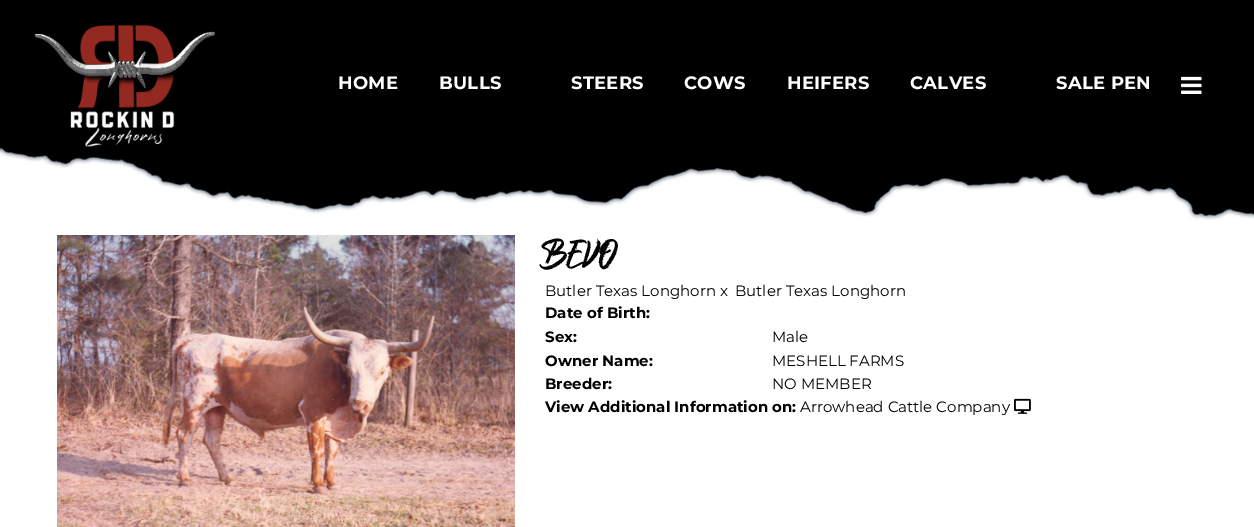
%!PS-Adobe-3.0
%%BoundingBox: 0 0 1254 527
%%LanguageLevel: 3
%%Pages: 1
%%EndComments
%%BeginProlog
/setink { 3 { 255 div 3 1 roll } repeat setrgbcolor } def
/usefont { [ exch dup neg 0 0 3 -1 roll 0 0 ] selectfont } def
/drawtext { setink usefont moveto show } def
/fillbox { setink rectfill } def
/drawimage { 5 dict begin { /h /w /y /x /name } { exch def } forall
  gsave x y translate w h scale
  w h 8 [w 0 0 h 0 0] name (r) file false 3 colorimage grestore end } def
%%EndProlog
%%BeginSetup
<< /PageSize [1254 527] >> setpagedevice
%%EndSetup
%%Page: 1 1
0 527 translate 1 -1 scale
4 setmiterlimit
0 0 1254 527 255 255 255 fillbox
0 0 1254 135 0 0 0 fillbox
(assets/img3.rgb) 0 135 1254 85 drawimage
(assets/img1.rgb) 34 25 181 122 drawimage
/Montserrat-Bold 18 usefont
255 255 255 setink
338 89 moveto 0.25 0 (HOME) ashow
439 89 moveto 0.25 0 (BULLS) ashow
571 89 moveto 0.25 0 (STEERS) ashow
684 89 moveto 0.25 0 (COWS) ashow
787 89 moveto 0.25 0 (HEIFERS) ashow
910 89 moveto 0.25 0 (CALVES) ashow
1056 89 moveto 0.25 0 (SALE PEN) ashow
(assets/img2.rgb) 1181 76 21 18 drawimage
(assets/img4.rgb) 57 235 458 292 drawimage
(BEVO) 545 265 /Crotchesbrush-Bold 41 0 0 0 drawtext
(Butler Texas Longhorn x) 545 296 /Montserrat-Regular 15 0 0 0 drawtext
(Butler Texas Longhorn) 735 296 /Montserrat-Regular 15 0 0 0 drawtext
(Date of Birth:) 545 318 /Montserrat-Bold 15 0 0 0 drawtext
(Sex:) 545 342 /Montserrat-Bold 15 0 0 0 drawtext
(Male) 772 342 /Montserrat-Regular 15 0 0 0 drawtext
(Owner Name:) 545 366 /Montserrat-Bold 15 0 0 0 drawtext
(MESHELL FARMS) 772 366 /Montserrat-Regular 15 0 0 0 drawtext
(Breeder:) 545 389 /Montserrat-Bold 15 0 0 0 drawtext
(NO MEMBER) 772 389 /Montserrat-Regular 15 0 0 0 drawtext
(View Additional Information on:) 545 412 /Montserrat-Bold 15 0 0 0 drawtext
(Arrowhead Cattle Company) 800 412 /Montserrat-Regular 15 0 0 0 drawtext
(assets/img5.rgb) 1014 398 17 16 drawimage
showpage
%%EOF
